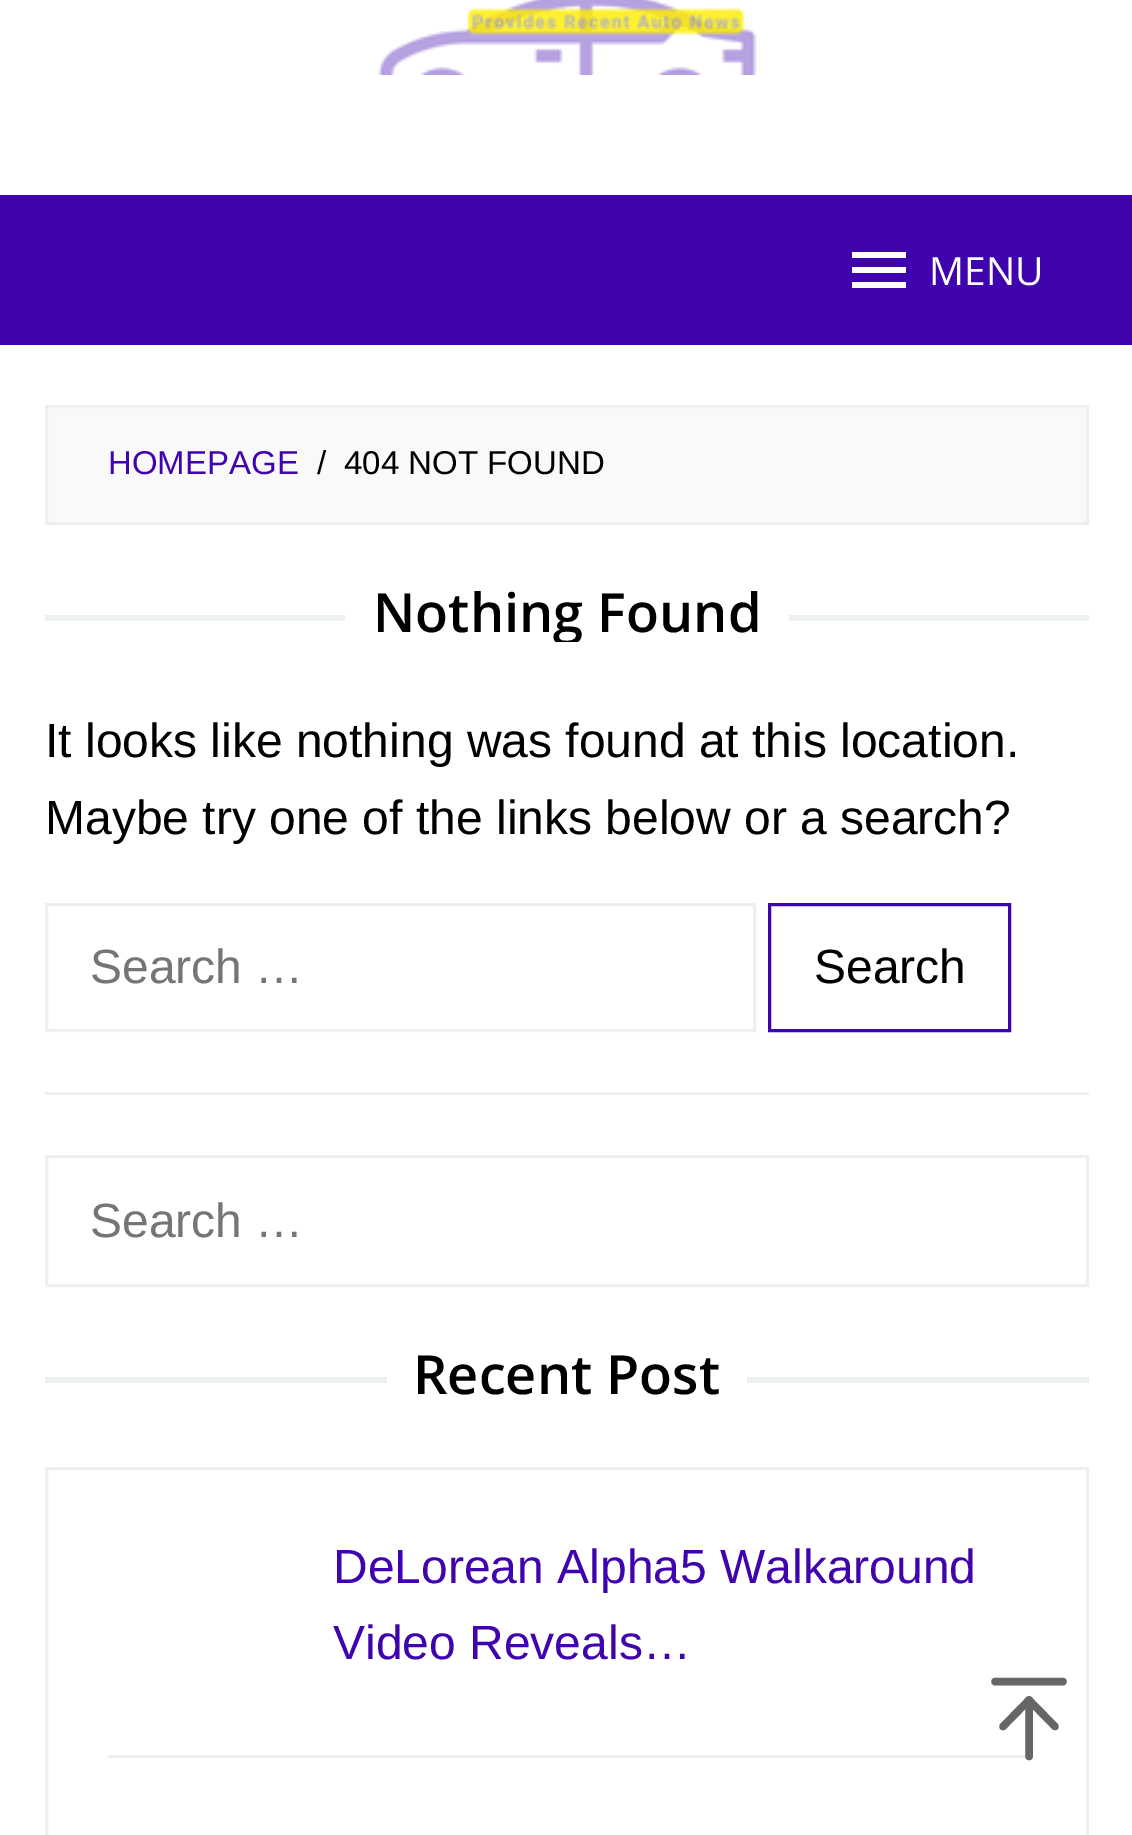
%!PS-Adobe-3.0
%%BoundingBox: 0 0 1132 1835
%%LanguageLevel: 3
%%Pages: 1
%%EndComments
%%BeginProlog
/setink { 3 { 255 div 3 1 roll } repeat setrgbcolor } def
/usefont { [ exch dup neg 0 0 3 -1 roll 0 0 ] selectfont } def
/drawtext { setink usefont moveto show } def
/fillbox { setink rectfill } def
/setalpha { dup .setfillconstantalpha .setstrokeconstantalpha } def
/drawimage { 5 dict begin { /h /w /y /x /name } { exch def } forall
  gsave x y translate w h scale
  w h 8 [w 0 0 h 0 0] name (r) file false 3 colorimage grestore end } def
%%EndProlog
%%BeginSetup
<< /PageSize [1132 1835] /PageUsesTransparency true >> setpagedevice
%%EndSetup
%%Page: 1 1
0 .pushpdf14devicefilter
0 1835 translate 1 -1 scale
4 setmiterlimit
0 0 1132 1835 255 255 255 fillbox
(assets/img1.rgb) 378 0 379 75 drawimage
0 195 1132 150 63 4 174 fillbox
255 255 255 setink
852 288 moveto 906 288 lineto 906 282 lineto 852 282 lineto closepath 852 273 moveto 906 273 lineto 906 267 lineto 852 267 lineto closepath 852 252 moveto 852 258 lineto 906 258 lineto 906 252 lineto closepath fill
(MENU) 929 285 /OpenSans-Regular 39 255 255 255 drawtext
249 249 249 setink
46.5 406.5 moveto 1087.5 406.5 lineto 1087.5 523.5 lineto 46.5 523.5 lineto closepath gsave fill grestore
236 240 241 setink
3 setlinewidth
stroke
(HOMEPAGE) 108 474 /LiberationSans-Regular 33 63 4 174 drawtext
(/) 317 474 /LiberationSans-Regular 33 0 0 0 drawtext
(404 NOT FOUND) 344 474 /LiberationSans-Regular 33 0 0 0 drawtext
45 1092 1044 3 236 240 241 fillbox
45 615 300 6 236 240 241 fillbox
gsave
45 585 1044 57 rectclip
(Nothing Found) 373 632 /OpenSans-SemiBold 54 0 0 0 drawtext
grestore
789 615 300 6 236 240 241 fillbox
(It looks like nothing was found at this location.) 45 757 /LiberationSans-Regular 48 0 0 0 drawtext
(Maybe try one of the links below or a search?) 45 834 /LiberationSans-Regular 48 0 0 0 drawtext
236 240 241 setink
46.5 904.5 708 126 rectstroke
(Search …) 90 983 /LiberationSans-Regular 48 117 117 117 drawtext
63 4 174 setink
769.5 904.5 240 126 rectstroke
(Search) 814 983 /LiberationSans-Regular 48 0 0 0 drawtext
236 240 241 setink
46.5 1156.5 1041 129 rectstroke
(Search …) 90 1237 /LiberationSans-Regular 48 117 117 117 drawtext
45 1377 342 6 236 240 241 fillbox
(Recent Post) 413 1394 /OpenSans-SemiBold 54 0 0 0 drawtext
747 1377 342 6 236 240 241 fillbox
46.5 1468.5 1041 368 rectstroke
108 1755 918 3 236 240 241 fillbox
(DeLorean Alpha5 Walkaround) 333 1583 /LiberationSans-Regular 48 63 4 174 drawtext
(Video Reveals…) 333 1659 /LiberationSans-Regular 48 63 4 174 drawtext
102 102 102 setink
7.5 setlinewidth
1 setlinecap
1 setlinejoin
995 1681.5 moveto 1063 1681.5 lineto stroke
0.6 setalpha
0 0 0 setink
1029 1756.5 moveto 1029 1700 lineto stroke
1 setalpha
102 102 102 setink
1003 1726.5 moveto 1029 1700 lineto 1055 1726.5 lineto stroke
.poppdf14devicefilter showpage
%%EOF
